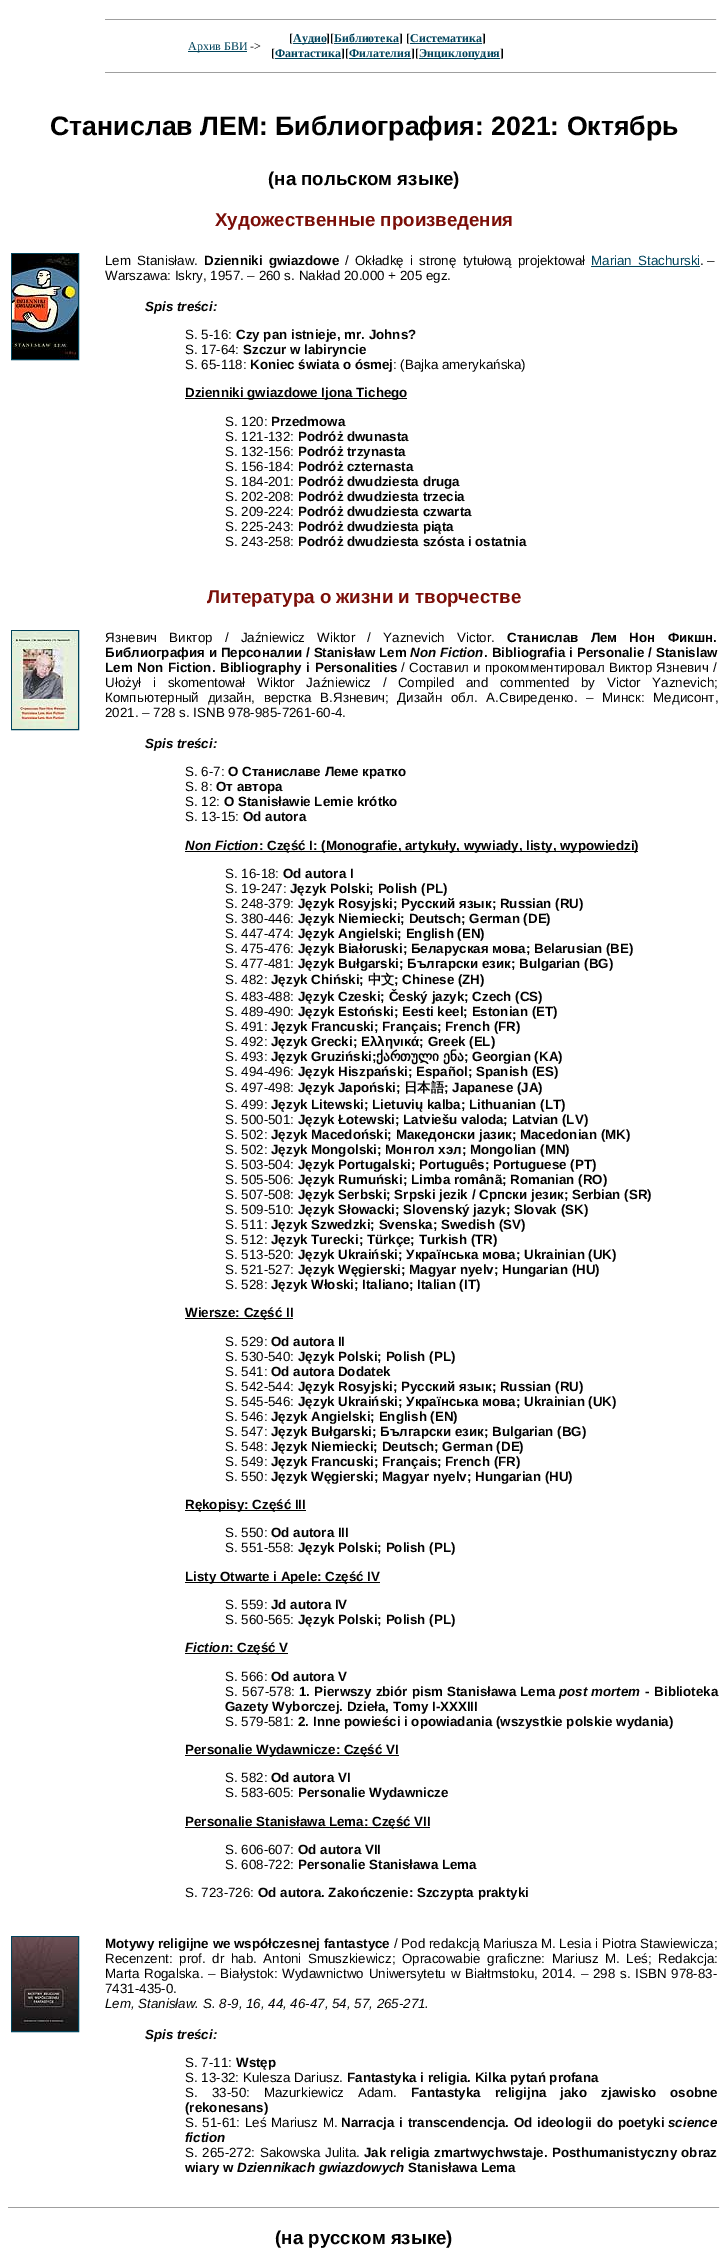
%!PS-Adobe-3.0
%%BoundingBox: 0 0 728 2263
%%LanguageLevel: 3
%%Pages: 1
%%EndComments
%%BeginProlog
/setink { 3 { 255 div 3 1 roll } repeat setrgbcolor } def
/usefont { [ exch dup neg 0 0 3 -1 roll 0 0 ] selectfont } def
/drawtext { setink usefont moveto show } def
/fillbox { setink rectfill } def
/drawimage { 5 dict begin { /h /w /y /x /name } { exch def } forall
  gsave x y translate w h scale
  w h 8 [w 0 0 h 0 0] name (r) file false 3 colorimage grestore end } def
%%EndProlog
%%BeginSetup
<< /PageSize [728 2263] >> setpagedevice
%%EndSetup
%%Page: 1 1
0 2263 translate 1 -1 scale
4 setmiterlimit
0 0 728 2263 255 255 255 fillbox
105 19 612 1 159 159 159 fillbox
716 19 1 1 238 238 238 fillbox
188 51 59 1 1 68 92 fillbox
(Архив БВИ) 188 50 /LiberationSerif-Regular 12 1 68 92 drawtext
(->) 250 50 /LiberationSerif-Regular 12 0 0 0 drawtext
([) 289 42 /LiberationSerif-Bold 12 0 0 0 drawtext
293 43 33 1 1 68 92 fillbox
(Аудио) 293 42 /LiberationSerif-Bold 12 1 68 92 drawtext
(][) 326 42 /LiberationSerif-Bold 12 0 0 0 drawtext
334 43 65 1 1 68 92 fillbox
(Библиотека) 334 42 /LiberationSerif-Bold 12 1 68 92 drawtext
(] [) 399 42 /LiberationSerif-Bold 12 0 0 0 drawtext
410 43 72 1 1 68 92 fillbox
(Систематика) 410 42 /LiberationSerif-Bold 12 1 68 92 drawtext
(]) 482 42 /LiberationSerif-Bold 12 0 0 0 drawtext
([) 271 57 /LiberationSerif-Bold 12 0 0 0 drawtext
275 58 66 1 1 68 92 fillbox
(Фантастика) 275 57 /LiberationSerif-Bold 12 1 68 92 drawtext
(][) 341 57 /LiberationSerif-Bold 12 0 0 0 drawtext
349 58 62 1 1 68 92 fillbox
(Филателия) 349 57 /LiberationSerif-Bold 12 1 68 92 drawtext
(][) 411 57 /LiberationSerif-Bold 12 0 0 0 drawtext
419 58 81 1 1 68 92 fillbox
(Энциклопудия) 419 57 /LiberationSerif-Bold 12 1 68 92 drawtext
(]) 500 57 /LiberationSerif-Bold 12 0 0 0 drawtext
105 72 612 1 159 159 159 fillbox
716 72 1 1 238 238 238 fillbox
(Станислав ЛЕМ: Библиография: 2021: Октябрь) 50 135 /LiberationSans-Bold 26.7 0 0 0 drawtext
(\(на польском языке\)) 268 185 /LiberationSans-Bold 18.7 0 0 0 drawtext
(Художественные произведения) 215 226 /LiberationSans-Bold 18.7 123 14 8 drawtext
1 68 92 setink
11.5 253.5 67 106 rectstroke
(assets/img1.rgb) 12 254 66 105 drawimage
/LiberationSans-Regular 13.35 usefont
0 0 0 setink
105 265 moveto 2.5 0 32 (Lem Stanisław.) widthshow
/LiberationSans-Bold 13.35 usefont
204 265 moveto 2.5 0 32 (Dzienniki gwiazdowe) widthshow
/LiberationSans-Regular 13.35 usefont
345 265 moveto 2.5 0 32 (/ Okładkę i stronę tytułową projektował) widthshow
1 68 92 setink
591 265 moveto 2.5 0 32 (Marian Stachurski) widthshow
591 266 109 1 1 68 92 fillbox
(. –) 700 265 /LiberationSans-Regular 13.35 0 0 0 drawtext
(Warszawa: Iskry, 1957. – 260 s. Nakład 20.000 + 205 egz.) 105 280 /LiberationSans-Regular 13.35 0 0 0 drawtext
(Spis treści:) 145 311 /LiberationSans-BoldItalic 13.35 0 0 0 drawtext
(S. 5-16:) 185 339 /LiberationSans-Regular 13.35 0 0 0 drawtext
(Czy pan istnieje, mr. Johns?) 236 339 /LiberationSans-Bold 13.35 0 0 0 drawtext
(S. 17-64:) 185 354 /LiberationSans-Regular 13.35 0 0 0 drawtext
(Szczur w labiryncie) 243 354 /LiberationSans-Bold 13.35 0 0 0 drawtext
(S. 65-118:) 185 369 /LiberationSans-Regular 13.35 0 0 0 drawtext
(Koniec świata o ósmej) 250 369 /LiberationSans-Bold 13.35 0 0 0 drawtext
(: \(Bajka amerykańska\)) 393 369 /LiberationSans-Regular 13.35 0 0 0 drawtext
185 398 222 1 0 0 0 fillbox
(Dzienniki gwiazdowe Ijona Tichego) 185 397 /LiberationSans-Bold 13.35 0 0 0 drawtext
(S. 120:) 225 426 /LiberationSans-Regular 13.35 0 0 0 drawtext
(Przedmowa) 271 426 /LiberationSans-Bold 13.35 0 0 0 drawtext
(S. 121-132:) 225 441 /LiberationSans-Regular 13.35 0 0 0 drawtext
(Podróż dwunasta) 298 441 /LiberationSans-Bold 13.35 0 0 0 drawtext
(S. 132-156:) 225 456 /LiberationSans-Regular 13.35 0 0 0 drawtext
(Podróż trzynasta) 298 456 /LiberationSans-Bold 13.35 0 0 0 drawtext
(S. 156-184:) 225 471 /LiberationSans-Regular 13.35 0 0 0 drawtext
(Podróż czternasta) 298 471 /LiberationSans-Bold 13.35 0 0 0 drawtext
(S. 184-201:) 225 486 /LiberationSans-Regular 13.35 0 0 0 drawtext
(Podróż dwudziesta druga) 298 486 /LiberationSans-Bold 13.35 0 0 0 drawtext
(S. 202-208:) 225 501 /LiberationSans-Regular 13.35 0 0 0 drawtext
(Podróż dwudziesta trzecia) 298 501 /LiberationSans-Bold 13.35 0 0 0 drawtext
(S. 209-224:) 225 516 /LiberationSans-Regular 13.35 0 0 0 drawtext
(Podróż dwudziesta czwarta) 298 516 /LiberationSans-Bold 13.35 0 0 0 drawtext
(S. 225-243:) 225 531 /LiberationSans-Regular 13.35 0 0 0 drawtext
(Podróż dwudziesta piąta) 298 531 /LiberationSans-Bold 13.35 0 0 0 drawtext
(S. 243-258:) 225 546 /LiberationSans-Regular 13.35 0 0 0 drawtext
(Podróż dwudziesta szósta i ostatnia) 298 546 /LiberationSans-Bold 13.35 0 0 0 drawtext
(Литература о жизни и творчестве) 207 603 /LiberationSans-Bold 18.7 123 14 8 drawtext
1 68 92 setink
11.5 630.5 67 99 rectstroke
(assets/img2.rgb) 12 631 66 98 drawimage
/LiberationSans-Regular 13.35 usefont
0 0 0 setink
105 642 moveto 8.5 0 32 (Язневич Виктор / Jaźniewicz Wiktor / Yaznevich Victor.) widthshow
/LiberationSans-Bold 13.35 usefont
507 642 moveto 8.5 0 32 (Станислав Лем Нон Фикшн.) widthshow
105 657 moveto 0.25 0 32 (Библиография и Персоналии / Stanisław Lem) widthshow
(Non Fiction) 410 657 /LiberationSans-BoldItalic 13.35 0 0 0 drawtext
/LiberationSans-Bold 13.35 usefont
484 657 moveto 0.25 0 32 (. Bibliografia i Personalie / Stanislaw) widthshow
105 672 moveto 1 0 32 (Lem Non Fiction. Bibliography i Personalities) widthshow
/LiberationSans-Regular 13.35 usefont
401 672 moveto 0.75 0 32 (/ Составил и прокомментировал Виктор Язневич /) widthshow
105 687 moveto 7.9 0 32 (Ułożył i skomentował Wiktor Jaźniewicz / Compiled and commented by Victor Yaznevich;) widthshow
105 702 moveto 5 0 32 (Компьютерный дизайн, верстка В.Язневич; Дизайн обл. А.Свиреденко. – Минск: Медисонт,) widthshow
(2021. – 728 s. ISNB 978-985-7261-60-4.) 105 717 /LiberationSans-Regular 13.35 0 0 0 drawtext
(Spis treści:) 145 748 /LiberationSans-BoldItalic 13.35 0 0 0 drawtext
(S. 6-7:) 185 776 /LiberationSans-Regular 13.35 0 0 0 drawtext
(О Станиславе Леме кратко) 228 776 /LiberationSans-Bold 13.35 0 0 0 drawtext
(S. 8:) 185 791 /LiberationSans-Regular 13.35 0 0 0 drawtext
(От автора) 216 791 /LiberationSans-Bold 13.35 0 0 0 drawtext
(S. 12:) 185 806 /LiberationSans-Regular 13.35 0 0 0 drawtext
(O Stanisławie Lemie krótko) 224 806 /LiberationSans-Bold 13.35 0 0 0 drawtext
(S. 13-15:) 185 821 /LiberationSans-Regular 13.35 0 0 0 drawtext
(Od autora) 243 821 /LiberationSans-Bold 13.35 0 0 0 drawtext
(Non Fiction) 185 850 /LiberationSans-BoldItalic 13.35 0 0 0 drawtext
185 851 453 1 0 0 0 fillbox
(: Część I: \(Monografie, artykuły, wywiady, listy, wypowiedzi\)) 259 850 /LiberationSans-Bold 13.35 0 0 0 drawtext
(S. 16-18:) 225 878 /LiberationSans-Regular 13.35 0 0 0 drawtext
(Od autora I) 283 878 /LiberationSans-Bold 13.35 0 0 0 drawtext
(S. 19-247:) 225 893 /LiberationSans-Regular 13.35 0 0 0 drawtext
(Język Polski; Polish \(PL\)) 290 893 /LiberationSans-Bold 13.35 0 0 0 drawtext
(S. 248-379:) 225 908 /LiberationSans-Regular 13.35 0 0 0 drawtext
(Język Rosyjski; Русский язык; Russian \(RU\)) 298 908 /LiberationSans-Bold 13.35 0 0 0 drawtext
(S. 380-446:) 225 923 /LiberationSans-Regular 13.35 0 0 0 drawtext
(Język Niemiecki; Deutsch; German \(DE\)) 298 923 /LiberationSans-Bold 13.35 0 0 0 drawtext
(S. 447-474:) 225 938 /LiberationSans-Regular 13.35 0 0 0 drawtext
(Język Angielski; English \(EN\)) 298 938 /LiberationSans-Bold 13.35 0 0 0 drawtext
(S. 475-476:) 225 953 /LiberationSans-Regular 13.35 0 0 0 drawtext
(Język Białoruski; Беларуская мова; Belarusian \(BE\)) 298 953 /LiberationSans-Bold 13.35 0 0 0 drawtext
(S. 477-481:) 225 968 /LiberationSans-Regular 13.35 0 0 0 drawtext
(Język Bułgarski; Български език; Bulgarian \(BG\)) 298 968 /LiberationSans-Bold 13.35 0 0 0 drawtext
(S. 482:) 225 984 /LiberationSans-Regular 13.35 0 0 0 drawtext
(Język Chiński;) 271 984 /LiberationSans-Bold 13.35 0 0 0 drawtext
(中文) 368 984 /WenQuanYiZenHei-Bold 13.35 0 0 0 drawtext
(; Chinese \(ZH\)) 394 984 /LiberationSans-Bold 13.35 0 0 0 drawtext
(S. 483-488:) 225 1001 /LiberationSans-Regular 13.35 0 0 0 drawtext
(Język Czeski; Český jazyk; Czech \(CS\)) 298 1001 /LiberationSans-Bold 13.35 0 0 0 drawtext
(S. 489-490:) 225 1016 /LiberationSans-Regular 13.35 0 0 0 drawtext
(Język Estoński; Eesti keel; Estonian \(ET\)) 298 1016 /LiberationSans-Bold 13.35 0 0 0 drawtext
(S. 491:) 225 1031 /LiberationSans-Regular 13.35 0 0 0 drawtext
(Język Francuski; Français; French \(FR\)) 271 1031 /LiberationSans-Bold 13.35 0 0 0 drawtext
(S. 492:) 225 1046 /LiberationSans-Regular 13.35 0 0 0 drawtext
(Język Grecki; Ελληνικά; Greek \(EL\)) 271 1046 /LiberationSans-Bold 13.35 0 0 0 drawtext
(S. 493:) 225 1061 /LiberationSans-Regular 13.35 0 0 0 drawtext
(Język Gruziński;) 271 1061 /LiberationSans-Bold 13.35 0 0 0 drawtext
(ქართული) 376 1061 /DejaVuSans-Bold 13.35 0 0 0 drawtext
(ენა) 443 1061 /DejaVuSans-Bold 13.35 0 0 0 drawtext
(; Georgian \(KA\)) 464 1061 /LiberationSans-Bold 13.35 0 0 0 drawtext
(S. 494-496:) 225 1076 /LiberationSans-Regular 13.35 0 0 0 drawtext
(Język Hiszpański; Español; Spanish \(ES\)) 298 1076 /LiberationSans-Bold 13.35 0 0 0 drawtext
(S. 497-498:) 225 1092 /LiberationSans-Regular 13.35 0 0 0 drawtext
(Język Japoński;) 298 1092 /LiberationSans-Bold 13.35 0 0 0 drawtext
(日本語) 404 1092 /WenQuanYiZenHei-Bold 13.35 0 0 0 drawtext
(; Japanese \(JA\)) 444 1092 /LiberationSans-Bold 13.35 0 0 0 drawtext
(S. 499:) 225 1109 /LiberationSans-Regular 13.35 0 0 0 drawtext
(Język Litewski; Lietuvių kalba; Lithuanian \(LT\)) 271 1109 /LiberationSans-Bold 13.35 0 0 0 drawtext
(S. 500-501:) 225 1124 /LiberationSans-Regular 13.35 0 0 0 drawtext
(Język Łotewski; Latviešu valoda; Latvian \(LV\)) 298 1124 /LiberationSans-Bold 13.35 0 0 0 drawtext
(S. 502:) 225 1139 /LiberationSans-Regular 13.35 0 0 0 drawtext
(Język Macedoński; Македонски jазик; Macedonian \(MK\)) 271 1139 /LiberationSans-Bold 13.35 0 0 0 drawtext
(S. 502:) 225 1154 /LiberationSans-Regular 13.35 0 0 0 drawtext
(Język Mongolski; Монгол хэл; Mongolian \(MN\)) 271 1154 /LiberationSans-Bold 13.35 0 0 0 drawtext
(S. 503-504:) 225 1169 /LiberationSans-Regular 13.35 0 0 0 drawtext
(Język Portugalski; Português; Portuguese \(PT\)) 298 1169 /LiberationSans-Bold 13.35 0 0 0 drawtext
(S. 505-506:) 225 1184 /LiberationSans-Regular 13.35 0 0 0 drawtext
(Język Rumuński; Limba românã; Romanian \(RO\)) 298 1184 /LiberationSans-Bold 13.35 0 0 0 drawtext
(S. 507-508:) 225 1199 /LiberationSans-Regular 13.35 0 0 0 drawtext
(Język Serbski; Srpski jezik / Српски jезик; Serbian \(SR\)) 298 1199 /LiberationSans-Bold 13.35 0 0 0 drawtext
(S. 509-510:) 225 1214 /LiberationSans-Regular 13.35 0 0 0 drawtext
(Język Słowacki; Slovenský jazyk; Slovak \(SK\)) 298 1214 /LiberationSans-Bold 13.35 0 0 0 drawtext
(S. 511:) 225 1229 /LiberationSans-Regular 13.35 0 0 0 drawtext
(Język Szwedzki; Svenska; Swedish \(SV\)) 271 1229 /LiberationSans-Bold 13.35 0 0 0 drawtext
(S. 512:) 225 1244 /LiberationSans-Regular 13.35 0 0 0 drawtext
(Język Turecki; Türkçe; Turkish \(TR\)) 271 1244 /LiberationSans-Bold 13.35 0 0 0 drawtext
(S. 513-520:) 225 1259 /LiberationSans-Regular 13.35 0 0 0 drawtext
(Język Ukraiński; Украïнська мова; Ukrainian \(UK\)) 298 1259 /LiberationSans-Bold 13.35 0 0 0 drawtext
(S. 521-527:) 225 1274 /LiberationSans-Regular 13.35 0 0 0 drawtext
(Język Węgierski; Magyar nyelv; Hungarian \(HU\)) 298 1274 /LiberationSans-Bold 13.35 0 0 0 drawtext
(S. 528:) 225 1289 /LiberationSans-Regular 13.35 0 0 0 drawtext
(Język Włoski; Italiano; Italian \(IT\)) 271 1289 /LiberationSans-Bold 13.35 0 0 0 drawtext
185 1318 108 1 0 0 0 fillbox
(Wiersze: Część II) 185 1317 /LiberationSans-Bold 13.35 0 0 0 drawtext
(S. 529:) 225 1346 /LiberationSans-Regular 13.35 0 0 0 drawtext
(Od autora II) 271 1346 /LiberationSans-Bold 13.35 0 0 0 drawtext
(S. 530-540:) 225 1361 /LiberationSans-Regular 13.35 0 0 0 drawtext
(Język Polski; Polish \(PL\)) 298 1361 /LiberationSans-Bold 13.35 0 0 0 drawtext
(S. 541:) 225 1376 /LiberationSans-Regular 13.35 0 0 0 drawtext
(Od autora Dodatek) 271 1376 /LiberationSans-Bold 13.35 0 0 0 drawtext
(S. 542-544:) 225 1391 /LiberationSans-Regular 13.35 0 0 0 drawtext
(Język Rosyjski; Русский язык; Russian \(RU\)) 298 1391 /LiberationSans-Bold 13.35 0 0 0 drawtext
(S. 545-546:) 225 1406 /LiberationSans-Regular 13.35 0 0 0 drawtext
(Język Ukraiński; Украïнська мова; Ukrainian \(UK\)) 298 1406 /LiberationSans-Bold 13.35 0 0 0 drawtext
(S. 546:) 225 1421 /LiberationSans-Regular 13.35 0 0 0 drawtext
(Język Angielski; English \(EN\)) 271 1421 /LiberationSans-Bold 13.35 0 0 0 drawtext
(S. 547:) 225 1436 /LiberationSans-Regular 13.35 0 0 0 drawtext
(Język Bułgarski; Български език; Bulgarian \(BG\)) 271 1436 /LiberationSans-Bold 13.35 0 0 0 drawtext
(S. 548:) 225 1451 /LiberationSans-Regular 13.35 0 0 0 drawtext
(Język Niemiecki; Deutsch; German \(DE\)) 271 1451 /LiberationSans-Bold 13.35 0 0 0 drawtext
(S. 549:) 225 1466 /LiberationSans-Regular 13.35 0 0 0 drawtext
(Język Francuski; Français; French \(FR\)) 271 1466 /LiberationSans-Bold 13.35 0 0 0 drawtext
(S. 550:) 225 1481 /LiberationSans-Regular 13.35 0 0 0 drawtext
(Język Węgierski; Magyar nyelv; Hungarian \(HU\)) 271 1481 /LiberationSans-Bold 13.35 0 0 0 drawtext
185 1510 121 1 0 0 0 fillbox
(Rękopisy: Część III) 185 1509 /LiberationSans-Bold 13.35 0 0 0 drawtext
(S. 550:) 225 1537 /LiberationSans-Regular 13.35 0 0 0 drawtext
(Od autora III) 271 1537 /LiberationSans-Bold 13.35 0 0 0 drawtext
(S. 551-558:) 225 1552 /LiberationSans-Regular 13.35 0 0 0 drawtext
(Język Polski; Polish \(PL\)) 298 1552 /LiberationSans-Bold 13.35 0 0 0 drawtext
185 1582 195 1 0 0 0 fillbox
(Listy Otwarte i Apele: Część IV) 185 1581 /LiberationSans-Bold 13.35 0 0 0 drawtext
(S. 559:) 225 1609 /LiberationSans-Regular 13.35 0 0 0 drawtext
(Jd autora IV) 271 1609 /LiberationSans-Bold 13.35 0 0 0 drawtext
(S. 560-565:) 225 1624 /LiberationSans-Regular 13.35 0 0 0 drawtext
(Język Polski; Polish \(PL\)) 298 1624 /LiberationSans-Bold 13.35 0 0 0 drawtext
(Fiction) 185 1652 /LiberationSans-BoldItalic 13.35 0 0 0 drawtext
185 1653 103 1 0 0 0 fillbox
(: Część V) 229 1652 /LiberationSans-Bold 13.35 0 0 0 drawtext
(S. 566:) 225 1681 /LiberationSans-Regular 13.35 0 0 0 drawtext
(Od autora V) 271 1681 /LiberationSans-Bold 13.35 0 0 0 drawtext
/LiberationSans-Regular 13.35 usefont
225 1696 moveto 1 0 32 (S. 567-578:) widthshow
/LiberationSans-Bold 13.35 usefont
299 1696 moveto 0.5 0 32 (1. Pierwszy zbiór pism Stanisława Lema) widthshow
(post mortem) 559 1696 /LiberationSans-BoldItalic 13.35 0 0 0 drawtext
/LiberationSans-Bold 13.35 usefont
645 1696 moveto 1 0 32 (- Biblioteka) widthshow
(Gazety Wyborczej. Dzieła, Tomy I-XXXIII) 225 1711 /LiberationSans-Bold 13.35 0 0 0 drawtext
(S. 579-581:) 225 1726 /LiberationSans-Regular 13.35 0 0 0 drawtext
(2. Inne powieści i opowiadania \(wszystkie polskie wydania\)) 298 1726 /LiberationSans-Bold 13.35 0 0 0 drawtext
185 1755 214 1 0 0 0 fillbox
(Personalie Wydawnicze: Część VI) 185 1754 /LiberationSans-Bold 13.35 0 0 0 drawtext
(S. 582:) 225 1782 /LiberationSans-Regular 13.35 0 0 0 drawtext
(Od autora VI) 271 1782 /LiberationSans-Bold 13.35 0 0 0 drawtext
(S. 583-605:) 225 1797 /LiberationSans-Regular 13.35 0 0 0 drawtext
(Personalie Wydawnicze) 298 1797 /LiberationSans-Bold 13.35 0 0 0 drawtext
185 1827 245 1 0 0 0 fillbox
(Personalie Stanisława Lema: Część VII) 185 1826 /LiberationSans-Bold 13.35 0 0 0 drawtext
(S. 606-607:) 225 1854 /LiberationSans-Regular 13.35 0 0 0 drawtext
(Od autora VII) 298 1854 /LiberationSans-Bold 13.35 0 0 0 drawtext
(S. 608-722:) 225 1869 /LiberationSans-Regular 13.35 0 0 0 drawtext
(Personalie Stanisława Lema) 298 1869 /LiberationSans-Bold 13.35 0 0 0 drawtext
(S. 723-726:) 185 1897 /LiberationSans-Regular 13.35 0 0 0 drawtext
(Od autora. Zakończenie: Szczypta praktyki) 258 1897 /LiberationSans-Bold 13.35 0 0 0 drawtext
1 68 92 setink
11.5 1936.5 67 95 rectstroke
(assets/img3.rgb) 12 1937 66 94 drawimage
(Motywy religijne we współczesnej fantastyce) 105 1948 /LiberationSans-Bold 13.35 0 0 0 drawtext
(/ Pod redakcją Mariusza M. Lesia i Piotra Stawiewicza;) 394 1948 /LiberationSans-Regular 13.35 0 0 0 drawtext
105 1963 moveto 2.9 0 32 (Recenzent: prof. dr hab. Antoni Smuszkiewicz; Opracowabie graficzne: Mariusz M. Leś; Redakcja:) widthshow
105 1978 moveto 1.1 0 32 (Marta Rogalska. – Białystok: Wydawnictwo Uniwersytetu w Białtmstoku, 2014. – 298 s. ISBN 978-83-) widthshow
(7431-435-0.) 105 1993 /LiberationSans-Regular 13.35 0 0 0 drawtext
(Lem, Stanisław. S. 8-9, 16, 44, 46-47, 54, 57, 265-271.) 105 2008 /LiberationSans-Italic 13.35 0 0 0 drawtext
(Spis treści:) 145 2039 /LiberationSans-BoldItalic 13.35 0 0 0 drawtext
(S. 7-11:) 185 2067 /LiberationSans-Regular 13.35 0 0 0 drawtext
(Wstęp) 236 2067 /LiberationSans-Bold 13.35 0 0 0 drawtext
(S. 13-32: Kulesza Dariusz.) 185 2082 /LiberationSans-Regular 13.35 0 0 0 drawtext
(Fantastyka i religia. Kilka pytań profana) 347 2082 /LiberationSans-Bold 13.35 0 0 0 drawtext
/LiberationSans-Regular 13.35 usefont
185 2097 moveto 10.5 0 32 (S. 33-50: Mazurkiewicz Adam.) widthshow
/LiberationSans-Bold 13.35 usefont
411 2097 moveto 10.5 0 32 (Fantastyka religijna jako zjawisko osobne) widthshow
(\(rekonesans\)) 185 2112 /LiberationSans-Bold 13.35 0 0 0 drawtext
/LiberationSans-Regular 13.35 usefont
185 2127 moveto 1 0 32 (S. 51-61: Leś Mariusz M.) widthshow
/LiberationSans-Bold 13.35 usefont
341 2127 moveto 1 0 32 (Narracja i transcendencja. Od ideologii do poetyki) widthshow
(science) 668 2127 /LiberationSans-BoldItalic 13.35 0 0 0 drawtext
(fiction) 185 2142 /LiberationSans-BoldItalic 13.35 0 0 0 drawtext
/LiberationSans-Regular 13.35 usefont
185 2157 moveto 1 0 32 (S. 265-272: Sakowska Julita.) widthshow
/LiberationSans-Bold 13.35 usefont
364 2157 moveto 0.5 0 32 (Jak religia zmartwychwstaje. Posthumanistyczny obraz) widthshow
(wiary w) 185 2172 /LiberationSans-Bold 13.35 0 0 0 drawtext
(Dziennikach gwiazdowych) 237 2172 /LiberationSans-BoldItalic 13.35 0 0 0 drawtext
(Stanisława Lema) 408 2172 /LiberationSans-Bold 13.35 0 0 0 drawtext
8 2207 712 1 159 159 159 fillbox
719 2207 1 1 238 238 238 fillbox
(\(на русском языке\)) 275 2244 /LiberationSans-Bold 18.7 0 0 0 drawtext
showpage
%%EOF
